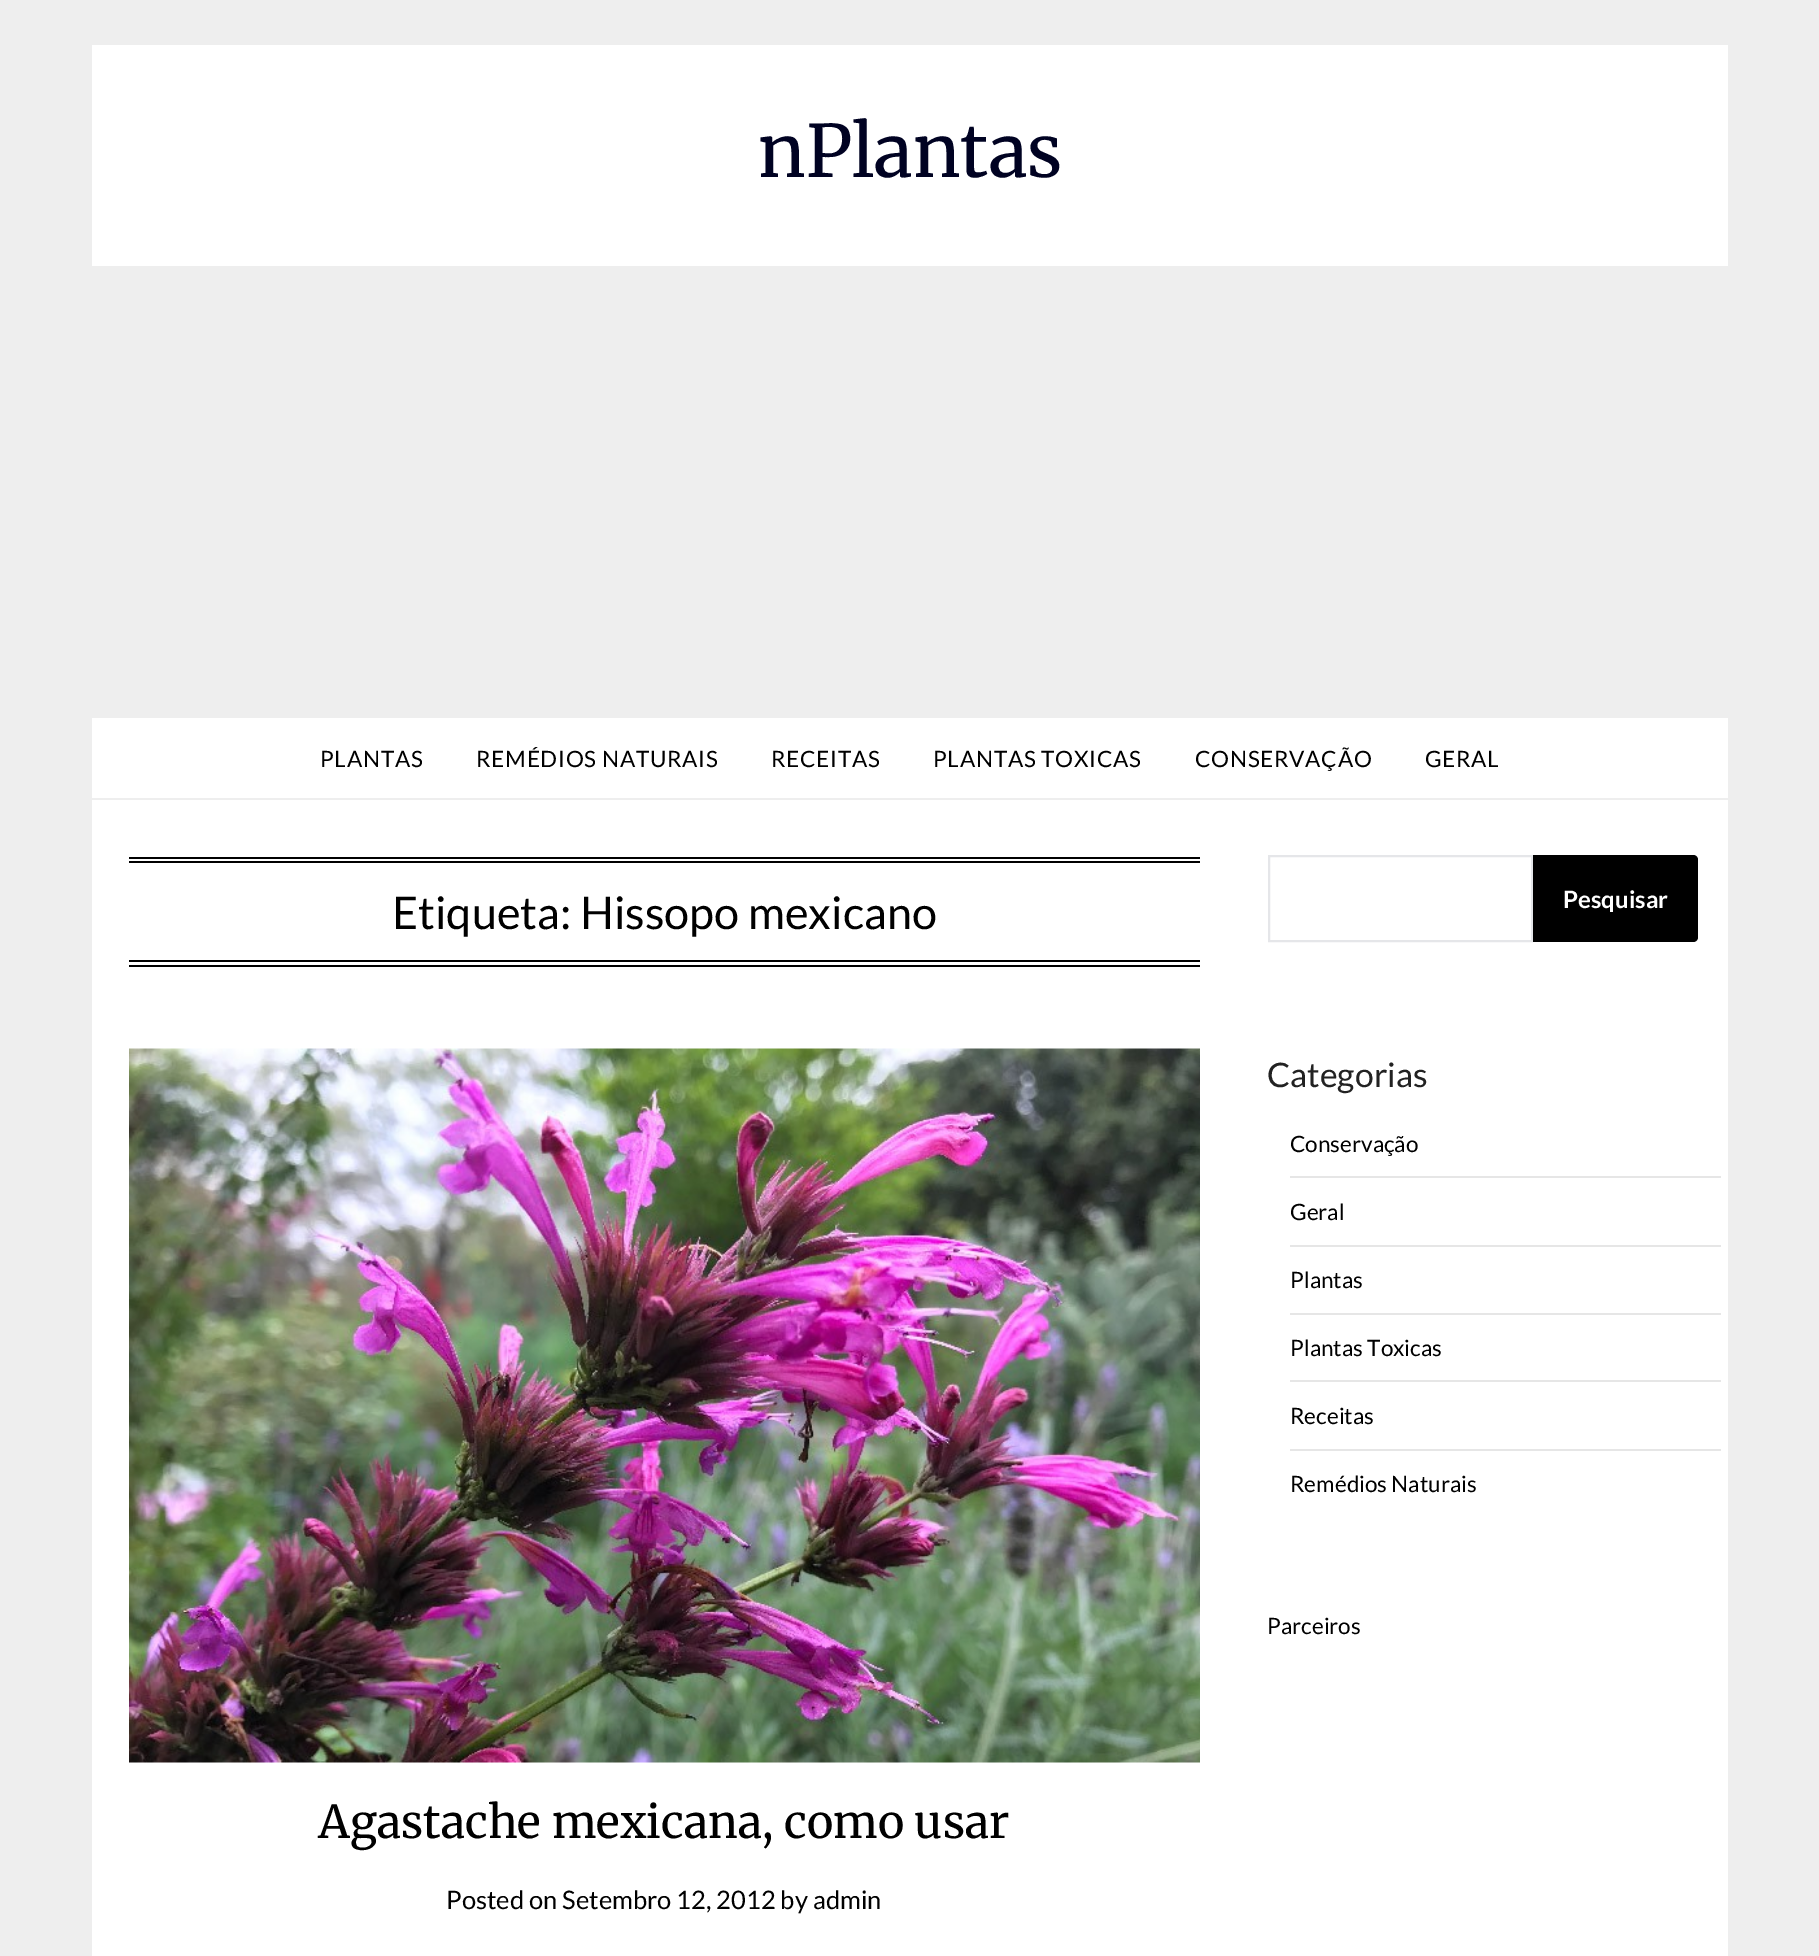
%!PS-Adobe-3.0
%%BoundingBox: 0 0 1819 1956
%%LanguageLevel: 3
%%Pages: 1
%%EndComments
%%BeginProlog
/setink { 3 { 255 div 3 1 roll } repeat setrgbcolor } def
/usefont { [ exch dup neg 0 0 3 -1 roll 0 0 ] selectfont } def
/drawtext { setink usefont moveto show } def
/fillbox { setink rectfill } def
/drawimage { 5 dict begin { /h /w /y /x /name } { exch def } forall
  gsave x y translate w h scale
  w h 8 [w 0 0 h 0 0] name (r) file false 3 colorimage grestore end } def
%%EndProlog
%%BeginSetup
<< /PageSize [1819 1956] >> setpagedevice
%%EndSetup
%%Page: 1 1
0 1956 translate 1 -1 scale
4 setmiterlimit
0 0 1819 1956 238 238 238 fillbox
92 45 1636 221 255 255 255 fillbox
(nPlantas) 758 177 /Merriweather-Regular 72 0 2 34 drawtext
92 718 1636 80 255 255 255 fillbox
/Lato-Regular 22.5 usefont
0 0 0 setink
320 767 moveto 0.75 0 (PLANTAS) ashow
476 767 moveto 0.75 0 (REMÉDIOS NATURAIS) ashow
771 767 moveto 0.75 0 (RECEITAS) ashow
933 767 moveto 0.75 0 (PLANTAS TOXICAS) ashow
1195 767 moveto 0.75 0 (CONSERVAÇÃO) ashow
1425 767 moveto 0.75 0 (GERAL) ashow
92 800 1636 1156 255 255 255 fillbox
129 857 1071 2 0 0 0 fillbox
129 861 1071 2 0 0 0 fillbox
129 960 1071 2 0 0 0 fillbox
129 965 1071 2 0 0 0 fillbox
(Etiqueta: Hissopo mexicano) 392 929 /Lato-Regular 45 0 0 0 drawtext
(assets/img1.rgb) 129 1048 1071 715 drawimage
(Agastache mexicana, como usar) 318 1838 /Merriweather-Regular 45 0 0 0 drawtext
(Posted on Setembro 12, 2012 by admin) 446 1909 /Lato-Regular 25.5 0 0 0 drawtext
229 230 233 setink
2 setlinewidth
1269 856 263 85 rectstroke
0 0 0 setink
1533 855 moveto 1693 855 lineto 1696 855 1698 857 1698 860 curveto 1698 937 lineto 1698 940 1696 942 1693 942 curveto 1533 942 lineto closepath fill
(Pesquisar) 1563 908 /Lato-Bold 24 255 255 255 drawtext
(Categorias) 1267 1087 /Lato-Regular 33.75 34 34 34 drawtext
1290 1176 431 2 230 230 230 fillbox
(Conservação) 1290 1152 /Lato-Regular 22.5 0 0 0 drawtext
1290 1245 431 2 230 230 230 fillbox
(Geral) 1290 1220 /Lato-Regular 22.5 0 0 0 drawtext
1290 1313 431 2 230 230 230 fillbox
(Plantas) 1290 1288 /Lato-Regular 22.5 0 0 0 drawtext
1290 1380 431 2 230 230 230 fillbox
(Plantas Toxicas) 1290 1356 /Lato-Regular 22.5 0 0 0 drawtext
1290 1449 431 2 230 230 230 fillbox
(Receitas) 1290 1424 /Lato-Regular 22.5 0 0 0 drawtext
(Remédios Naturais) 1290 1492 /Lato-Regular 22.5 0 0 0 drawtext
(Parceiros) 1267 1634 /Lato-Regular 22.5 0 0 0 drawtext
showpage
%%EOF
